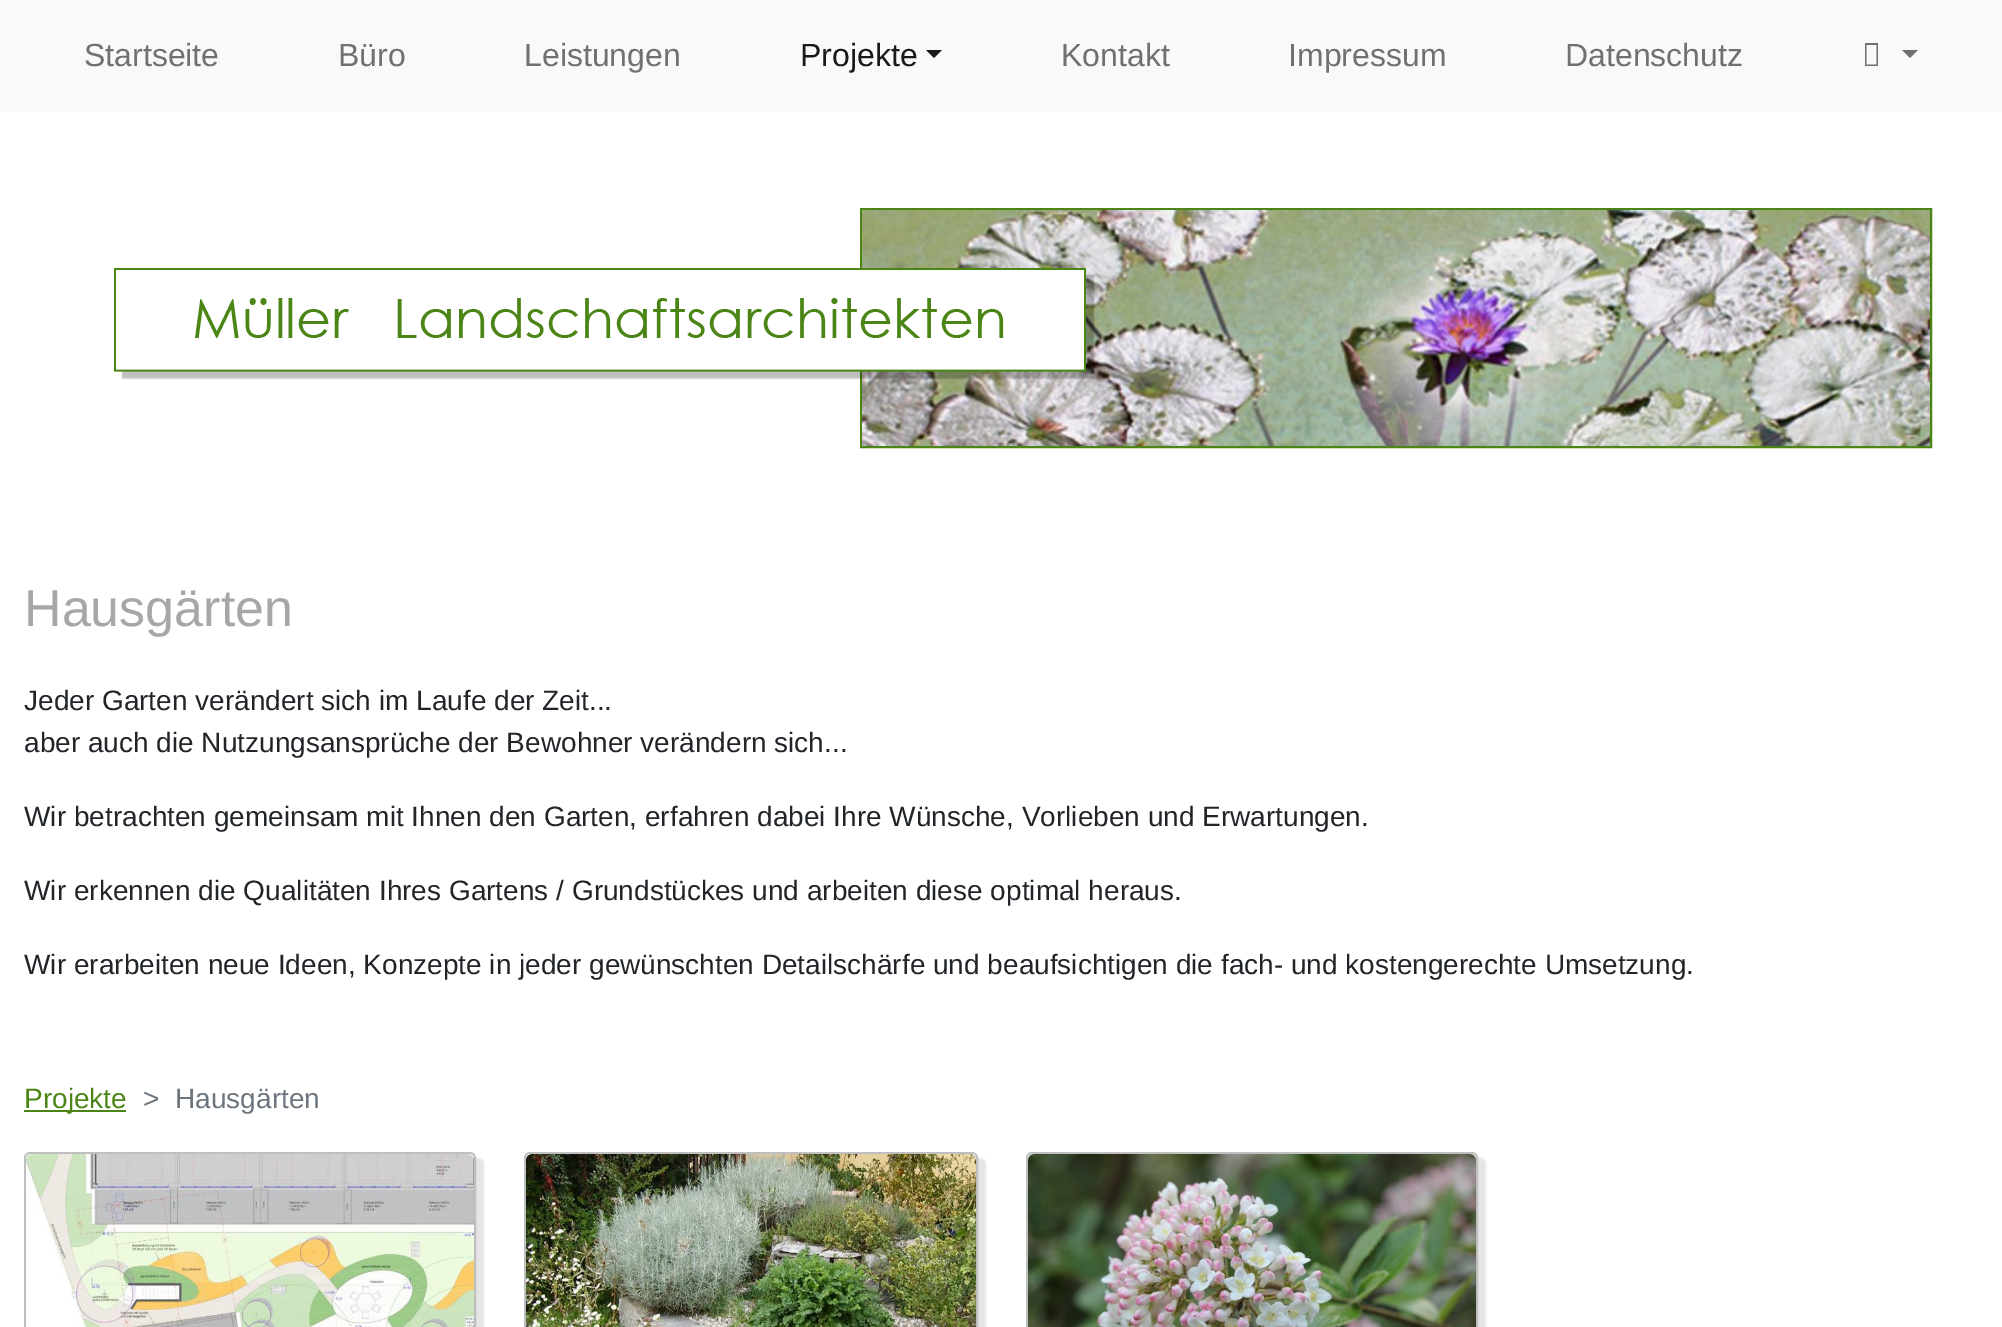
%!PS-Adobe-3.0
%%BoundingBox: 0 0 2002 1327
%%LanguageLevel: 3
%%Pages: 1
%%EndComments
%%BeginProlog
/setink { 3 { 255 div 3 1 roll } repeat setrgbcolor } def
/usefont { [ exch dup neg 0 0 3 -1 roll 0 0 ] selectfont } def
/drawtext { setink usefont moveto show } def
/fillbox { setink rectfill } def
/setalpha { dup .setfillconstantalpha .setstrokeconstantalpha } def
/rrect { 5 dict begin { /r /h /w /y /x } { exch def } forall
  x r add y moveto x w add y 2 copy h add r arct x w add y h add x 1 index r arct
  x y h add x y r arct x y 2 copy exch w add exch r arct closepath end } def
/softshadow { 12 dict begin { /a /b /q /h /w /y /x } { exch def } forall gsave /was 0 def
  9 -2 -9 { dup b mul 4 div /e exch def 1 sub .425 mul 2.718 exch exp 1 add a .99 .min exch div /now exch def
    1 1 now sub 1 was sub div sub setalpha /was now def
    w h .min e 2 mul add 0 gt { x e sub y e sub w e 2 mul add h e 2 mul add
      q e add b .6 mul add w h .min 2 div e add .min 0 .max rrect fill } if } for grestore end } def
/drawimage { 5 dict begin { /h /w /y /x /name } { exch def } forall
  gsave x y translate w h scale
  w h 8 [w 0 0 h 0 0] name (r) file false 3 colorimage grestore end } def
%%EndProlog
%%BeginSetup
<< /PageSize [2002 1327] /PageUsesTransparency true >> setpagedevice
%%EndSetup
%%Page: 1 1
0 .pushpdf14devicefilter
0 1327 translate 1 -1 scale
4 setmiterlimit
0 0 2002 1327 255 255 255 fillbox
0 0 2002 112 249 249 249 fillbox
(Startseite) 84 66 /LiberationSans-Regular 32 112 112 112 drawtext
(Büro) 338 66 /LiberationSans-Regular 32 112 112 112 drawtext
(Leistungen) 524 66 /LiberationSans-Regular 32 112 112 112 drawtext
(Projekte) 800 66 /LiberationSans-Regular 32 25 25 25 drawtext
926 50 moveto 942 50 lineto 934 58 lineto closepath fill
(Kontakt) 1061 66 /LiberationSans-Regular 32 112 112 112 drawtext
(Impressum) 1288 66 /LiberationSans-Regular 32 112 112 112 drawtext
(Datenschutz) 1565 66 /LiberationSans-Regular 32 112 112 112 drawtext
1865 66 moveto 1865 43 lineto 1878 43 lineto 1878 66 lineto closepath 1866.5 64.5 moveto 1876.5 64.5 lineto 1876.5 45 lineto 1866.5 45 lineto closepath 1902 50 moveto 1918 50 lineto 1910 58 lineto closepath fill
74 133 21 setink
2 setlinewidth
861 209 1070 238 rectstroke
(assets/img2.rgb) 862 210 1068 236 drawimage
(assets/img1.rgb) 114 268 981 112 drawimage
(Hausgärten) 24 626 /LiberationSans-Regular 52 167 167 167 drawtext
(Jeder Garten verändert sich im Laufe der Zeit...) 24 710 /LiberationSans-Regular 28 33 37 41 drawtext
(aber auch die Nutzungsansprüche der Bewohner verändern sich...) 24 752 /LiberationSans-Regular 28 33 37 41 drawtext
(Wir betrachten gemeinsam mit Ihnen den Garten, erfahren dabei Ihre Wünsche, Vorlieben und Erwartungen.) 24 826 /LiberationSans-Regular 28 33 37 41 drawtext
(Wir erkennen die Qualitäten Ihres Gartens / Grundstückes und arbeiten diese optimal heraus.) 24 900 /LiberationSans-Regular 28 33 37 41 drawtext
(Wir erarbeiten neue Ideen, Konzepte in jeder gewünschten Detailschärfe und beaufsichtigen die fach- und kostengerechte Umsetzung.) 24 974 /LiberationSans-Regular 28 33 37 41 drawtext
24 1110 102 2 74 133 21 fillbox
(Projekte) 24 1108 /LiberationSans-Regular 28 74 133 21 drawtext
(>) 143 1108 /LiberationSans-Regular 28 108 117 125 drawtext
(Hausgärten) 175 1108 /LiberationSans-Regular 28 108 117 125 drawtext
0 0 0 setink
32 1158 452 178 6 1 0.1 softshadow
191 191 191 setink
25 1153 450 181 5 rrect stroke
(assets/img3.rgb) 26 1154 448 173 drawimage
0 0 0 setink
532 1158 454 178 6 1 0.1 softshadow
191 191 191 setink
525 1153 452 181 5 rrect stroke
(assets/img4.rgb) 526 1154 450 173 drawimage
0 0 0 setink
1034 1158 452 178 6 1 0.1 softshadow
191 191 191 setink
1027 1153 450 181 5 rrect stroke
(assets/img5.rgb) 1028 1154 448 173 drawimage
.poppdf14devicefilter showpage
%%EOF
